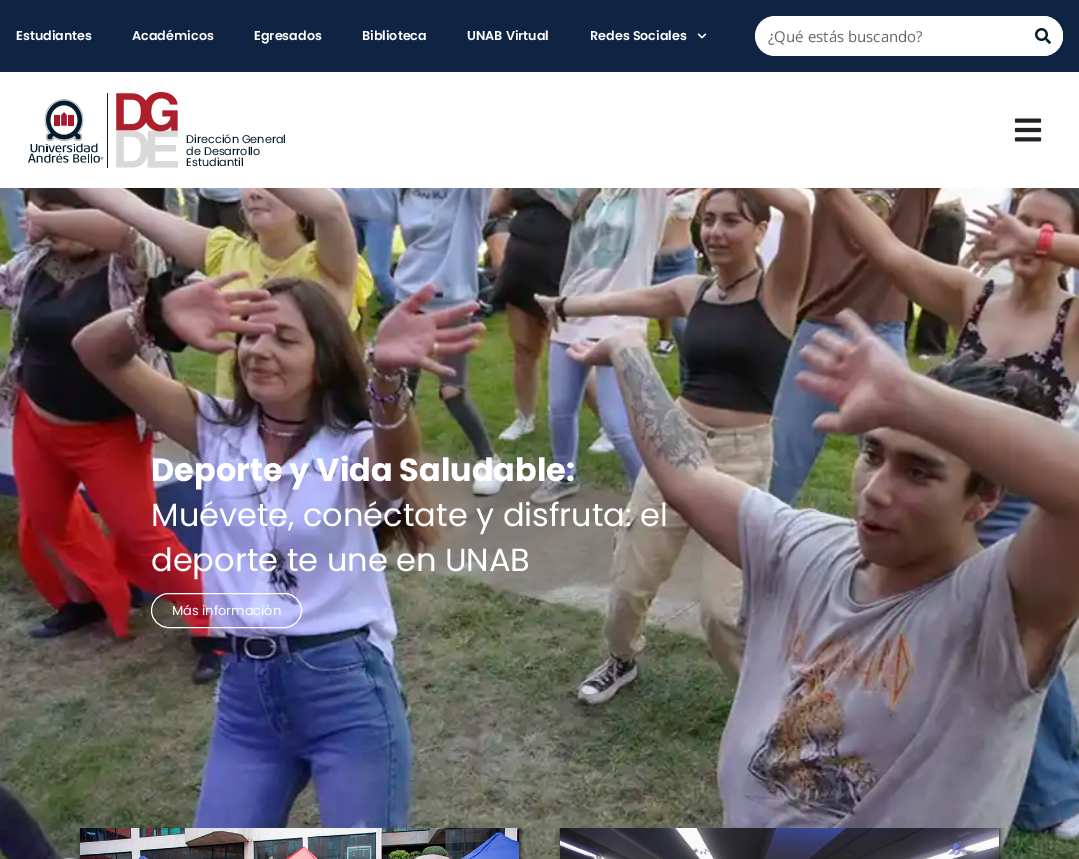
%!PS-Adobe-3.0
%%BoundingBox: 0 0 1079 859
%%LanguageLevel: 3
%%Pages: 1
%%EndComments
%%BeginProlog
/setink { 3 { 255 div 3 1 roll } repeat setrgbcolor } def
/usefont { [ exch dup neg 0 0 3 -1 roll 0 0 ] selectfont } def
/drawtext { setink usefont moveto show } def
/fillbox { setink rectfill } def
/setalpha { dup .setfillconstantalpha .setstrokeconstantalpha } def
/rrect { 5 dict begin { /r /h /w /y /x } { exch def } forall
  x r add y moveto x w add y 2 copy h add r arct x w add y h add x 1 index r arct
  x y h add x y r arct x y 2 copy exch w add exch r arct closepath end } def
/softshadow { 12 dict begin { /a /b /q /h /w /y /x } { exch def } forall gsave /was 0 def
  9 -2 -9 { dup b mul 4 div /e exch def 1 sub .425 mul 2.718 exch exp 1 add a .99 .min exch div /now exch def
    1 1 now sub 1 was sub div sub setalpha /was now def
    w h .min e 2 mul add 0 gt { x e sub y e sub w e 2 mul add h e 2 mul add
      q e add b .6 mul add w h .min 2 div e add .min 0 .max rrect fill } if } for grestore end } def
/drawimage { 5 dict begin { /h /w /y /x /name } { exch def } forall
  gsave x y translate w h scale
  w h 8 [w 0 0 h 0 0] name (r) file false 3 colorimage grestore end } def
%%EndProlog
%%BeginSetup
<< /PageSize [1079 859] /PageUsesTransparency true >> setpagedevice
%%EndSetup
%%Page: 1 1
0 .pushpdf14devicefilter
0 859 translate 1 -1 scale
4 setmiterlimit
0 0 1079 859 255 255 255 fillbox
0 0 1079 72 15 35 66 fillbox
(Estudiantes) 16 40 /Poppins-SemiBold 12.75 255 255 255 drawtext
(Académicos) 132 40 /Poppins-SemiBold 12.75 255 255 255 drawtext
(Egresados) 254 40 /Poppins-SemiBold 12.75 255 255 255 drawtext
(Biblioteca) 362 40 /Poppins-SemiBold 12.75 255 255 255 drawtext
(UNAB Virtual) 467 40 /Poppins-SemiBold 12.75 255 255 255 drawtext
(Redes Sociales) 590 40 /Poppins-SemiBold 12.75 255 255 255 drawtext
(assets/img1.rgb) 697 33 10 6 drawimage
755 16 308 40 20 rrect fill
(¿Qué estás buscando?) 768 42 /OpenSans-Regular 15 102 102 102 drawtext
255 255 255 setink
1023 16 moveto 1043 16 lineto 1054 16 1063 25 1063 36 curveto 1063 47 1054 56 1043 56 curveto 1023 56 lineto closepath fill
(assets/img2.rgb) 1035 28 16 16 drawimage
(assets/img3.rgb) 1014 118 28 24 drawimage
(assets/img4.rgb) 28 92 150 76 drawimage
(Dirección General) 186 143 /Poppins-Regular 11.25 5 28 44 drawtext
(de Desarrollo) 186 155 /Poppins-Regular 11.25 5 28 44 drawtext
(Estudiantil) 186 166 /Poppins-Regular 11.25 5 28 44 drawtext
(assets/img5.rgb) 0 188 1079 671 drawimage
(Deporte y Vida Saludable:) 151 481 /Poppins-Bold 32 255 255 255 drawtext
(Muévete, conéctate y disfruta: el) 151 526 /Poppins-Regular 32 255 255 255 drawtext
(deporte te une en UNAB) 151 571 /Poppins-Regular 32 255 255 255 drawtext
151.5 593.5 150 34 17 rrect stroke
(Más información) 172 615 /Poppins-Regular 13 255 255 255 drawtext
gsave
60 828 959 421 rectclip
0 0 0 setink
81 828 439 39 0 2.5 0.7 softshadow
grestore
(assets/img6.rgb) 80 828 439 31 drawimage
gsave
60 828 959 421 rectclip
0 0 0 setink
561 828 439 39 0 2.5 0.7 softshadow
grestore
(assets/img7.rgb) 560 828 439 31 drawimage
.poppdf14devicefilter showpage
%%EOF
